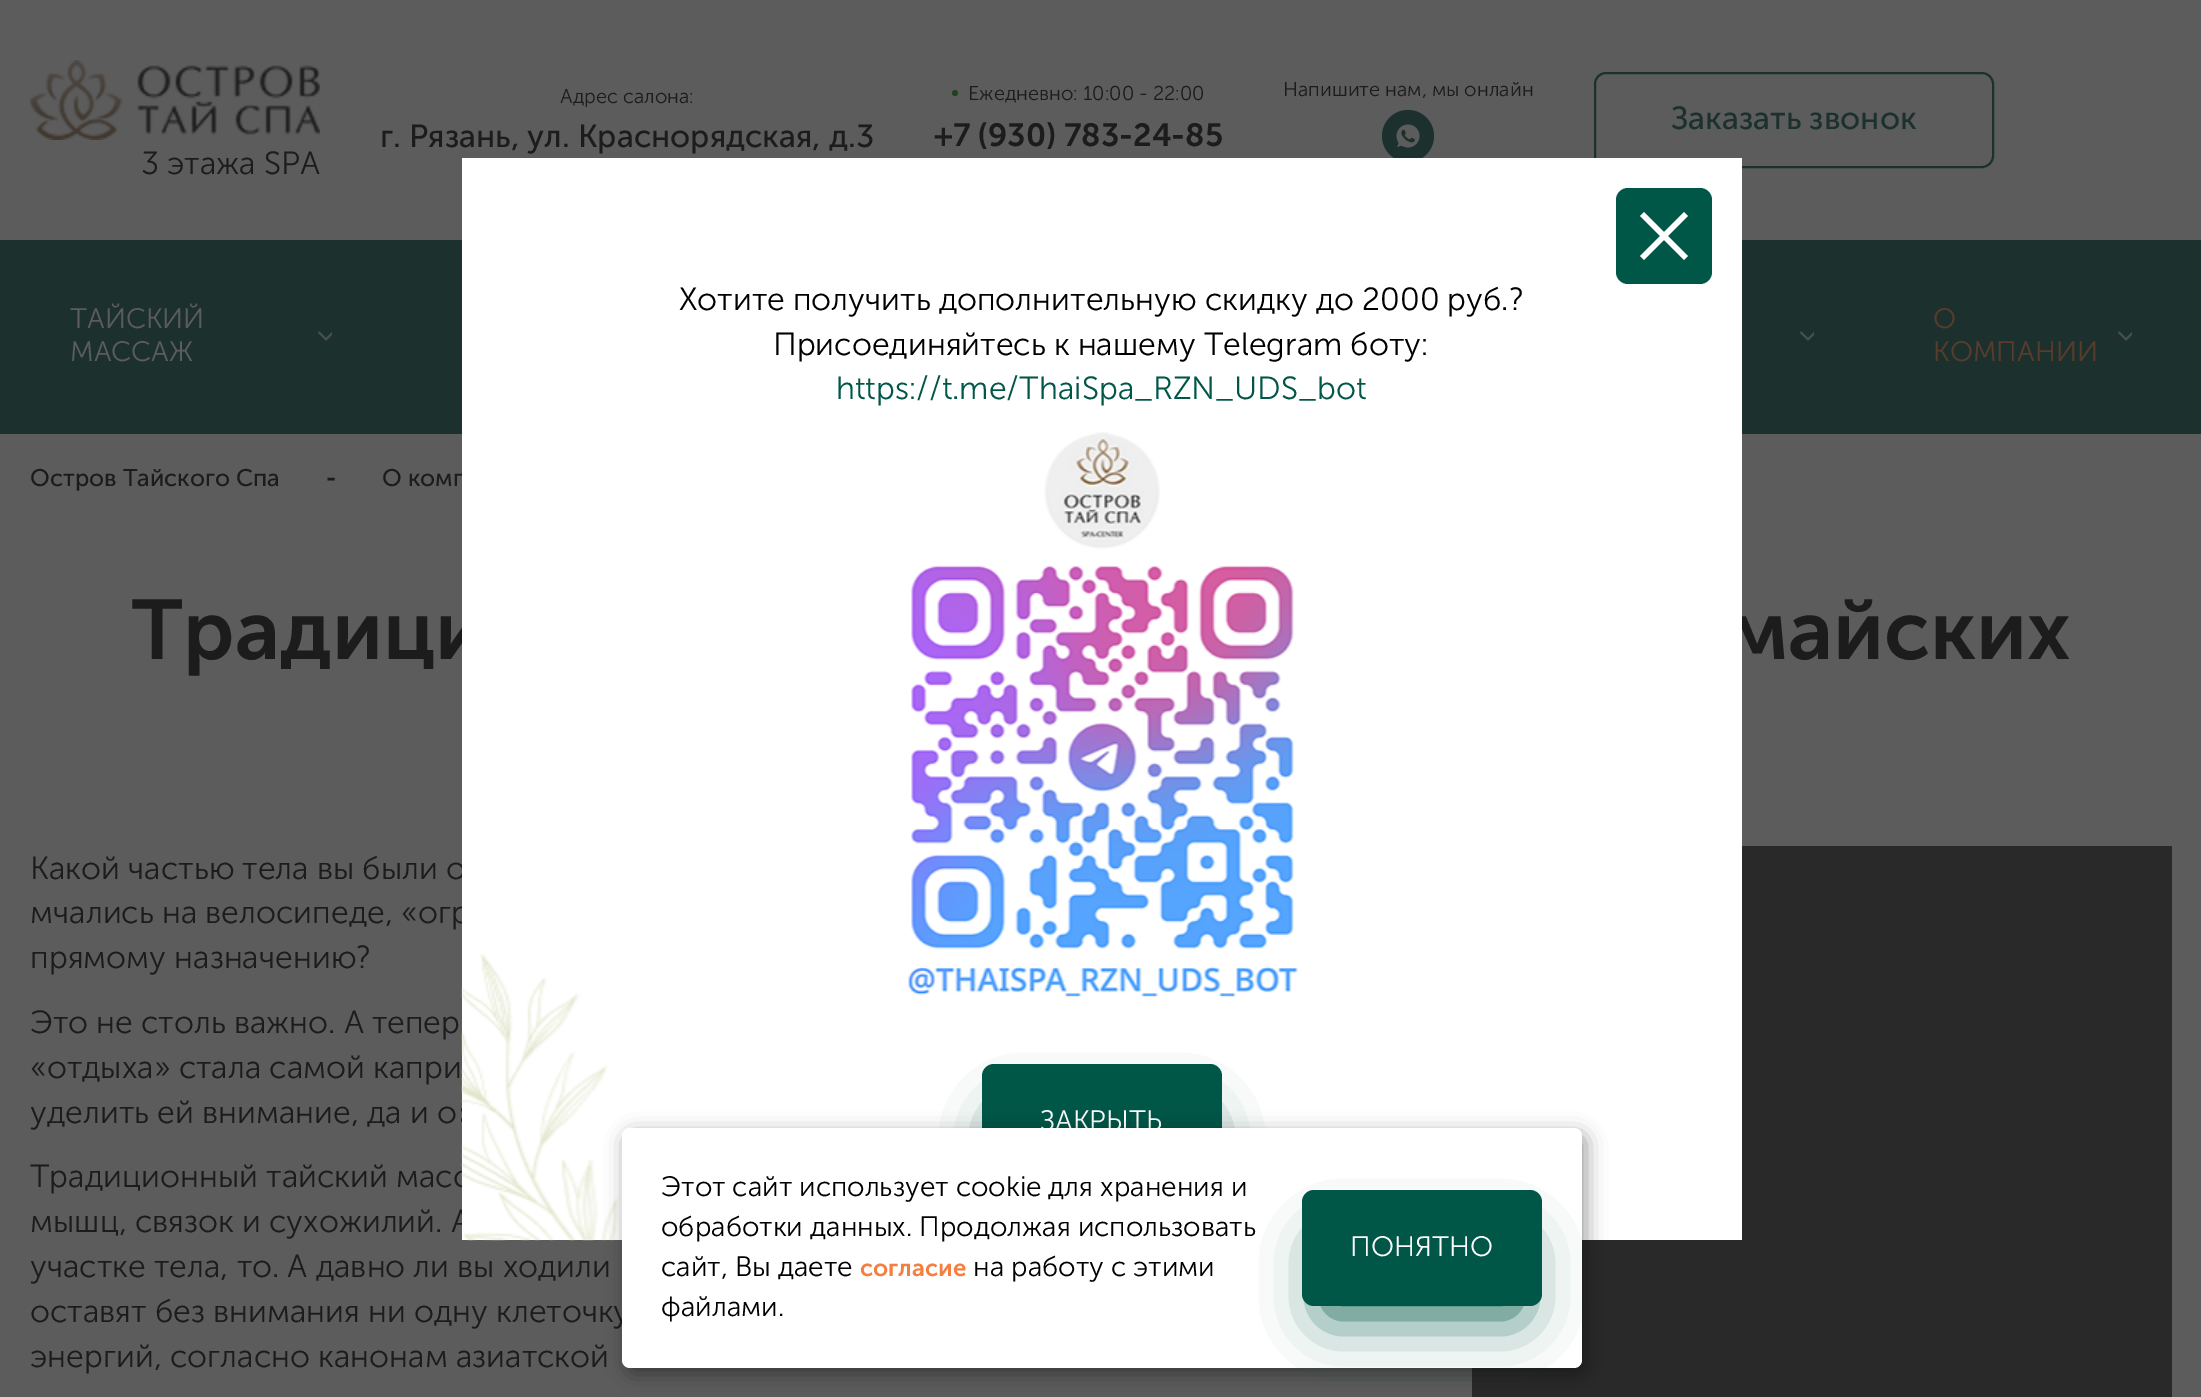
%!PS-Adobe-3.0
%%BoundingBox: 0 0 2201 1397
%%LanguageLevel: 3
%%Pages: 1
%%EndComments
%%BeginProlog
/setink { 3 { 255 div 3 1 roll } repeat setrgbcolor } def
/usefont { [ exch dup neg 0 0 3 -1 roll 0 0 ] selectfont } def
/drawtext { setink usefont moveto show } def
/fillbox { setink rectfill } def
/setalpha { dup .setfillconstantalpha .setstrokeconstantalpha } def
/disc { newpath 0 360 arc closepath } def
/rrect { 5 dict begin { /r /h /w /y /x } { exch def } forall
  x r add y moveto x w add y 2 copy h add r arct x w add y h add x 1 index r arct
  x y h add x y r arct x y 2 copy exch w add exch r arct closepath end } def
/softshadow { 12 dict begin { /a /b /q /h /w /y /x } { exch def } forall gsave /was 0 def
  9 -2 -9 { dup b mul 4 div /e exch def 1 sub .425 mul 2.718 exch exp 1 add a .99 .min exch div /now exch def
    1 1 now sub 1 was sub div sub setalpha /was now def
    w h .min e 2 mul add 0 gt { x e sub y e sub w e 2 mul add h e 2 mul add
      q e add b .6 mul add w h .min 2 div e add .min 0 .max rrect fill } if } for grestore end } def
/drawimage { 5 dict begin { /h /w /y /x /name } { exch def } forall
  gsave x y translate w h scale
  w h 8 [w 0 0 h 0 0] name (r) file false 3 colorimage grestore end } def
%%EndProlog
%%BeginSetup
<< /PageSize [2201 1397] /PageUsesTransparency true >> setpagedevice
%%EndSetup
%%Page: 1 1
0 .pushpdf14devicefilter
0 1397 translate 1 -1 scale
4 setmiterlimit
0 0 2201 1397 92 92 92 fillbox
(Адрес салона:) 560 103 /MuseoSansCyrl-Light 20 28 28 28 drawtext
(г. Рязань, ул. Краснорядская, д.3) 380 147 /MuseoSansCyrl-Regular 32 28 28 28 drawtext
32 66 29 setink
955 93 3 disc fill
(Ежедневно: 10:00 - 22:00) 968 100 /MuseoSansCyrl-Light 20 28 28 28 drawtext
(+7 \(930\) 783-24-85) 934 146 /MuseoSansCyrl-SemiBold 32 28 28 28 drawtext
(Напишите нам, мы онлайн) 1283 96 /MuseoSansCyrl-Light 20 28 28 28 drawtext
28 49 46 setink
1408 136 26 disc fill
(assets/img1.rgb) 1396 124 24 24 drawimage
2 setlinewidth
1595 73 398 94 11 rrect stroke
(Заказать звонок) 1671 129 /MuseoSansCyrl-Regular 32 28 49 46 drawtext
(assets/img2.rgb) 30 60 290 80 drawimage
(3 этажа SPA) 141 174 /MuseoSansCyrl-Light 32 28 28 28 drawtext
0 240 2201 194 28 49 46 fillbox
(ТАЙСКИЙ) 70 328 /MuseoSansCyrl-Light 28 92 92 92 drawtext
(assets/img3.rgb) 318 331 14 10 drawimage
(МАССАЖ) 70 361 /MuseoSansCyrl-Light 28 92 92 92 drawtext
(assets/img3.rgb) 1800 331 14 10 drawimage
(О) 1933 328 /MuseoSansCyrl-Light 28 89 60 44 drawtext
(assets/img3.rgb) 2118 331 14 10 drawimage
(КОМПАНИИ) 1933 361 /MuseoSansCyrl-Light 28 89 60 44 drawtext
(О комп) 382 486 /MuseoSansCyrl-Regular 24 28 28 28 drawtext
(Традици) 131 659 /MuseoSansCyrl-SemiBold 84 28 28 28 drawtext
(майских) 1726 659 /MuseoSansCyrl-SemiBold 84 28 28 28 drawtext
(Какой частью тела вы были о) 30 879 /MuseoSansCyrl-Light 32 28 28 28 drawtext
(мчались на велосипеде, «огр) 30 923 /MuseoSansCyrl-Light 32 28 28 28 drawtext
1472 846 700 551 41 41 41 fillbox
(Традиционный тайский масс) 30 1187 /MuseoSansCyrl-Light 32 28 28 28 drawtext
(мышц, связок и сухожилий. А) 30 1232 /MuseoSansCyrl-Light 32 28 28 28 drawtext
462 158 1280 1082 255 255 255 fillbox
0 86 71 setink
1616 188 96 96 12 rrect fill
255 255 255 setink
1668 236 moveto 1688 216 lineto 1684 212 lineto 1664 232 lineto 1644 212 lineto 1640 216 lineto 1660 236 lineto 1640 256 lineto 1644 260 lineto 1664 240 lineto 1684 260 lineto 1688 256 lineto closepath fill
(assets/img4.rgb) 461 954 158 287 drawimage
(Хотите получить дополнительную скидку до 2000 руб.?) 679 310 /MuseoSansCyrl-Light 32 0 0 0 drawtext
(Присоединяйтесь к нашему Telegram боту:) 773 355 /MuseoSansCyrl-Light 32 0 0 0 drawtext
(https://t.me/ThaiSpa_RZN_UDS_bot) 836 399 /MuseoSansCyrl-Light 32 0 86 71 drawtext
(assets/img5.rgb) 908 432 390 566 drawimage
982 1064 240 116 12 rrect fill
1006 1120 192 68 0 30 1 softshadow
(ЗАКРЫТЬ) 1040 1130 /MuseoSansCyrl-Light 28 255 255 255 drawtext
(Остров Тайского Спа) 30 486 /MuseoSansCyrl-Regular 24 28 28 28 drawtext
(-) 326 486 /MuseoSansCyrl-SemiBold 24 28 28 28 drawtext
(прямому назначению?) 30 968 /MuseoSansCyrl-Light 32 28 28 28 drawtext
(Это не столь важно. А тепер) 30 1033 /MuseoSansCyrl-Light 32 28 28 28 drawtext
(«отдыха» стала самой капри) 30 1078 /MuseoSansCyrl-Light 32 28 28 28 drawtext
(уделить ей внимание, да и о) 30 1123 /MuseoSansCyrl-Light 32 28 28 28 drawtext
(участке тела, то. А давно ли вы ходили) 30 1277 /MuseoSansCyrl-Light 32 28 28 28 drawtext
(оставят без внимания ни одну клеточку) 30 1322 /MuseoSansCyrl-Light 32 28 28 28 drawtext
(энергий, согласно канонам азиатской) 30 1367 /MuseoSansCyrl-Light 32 28 28 28 drawtext
0 0 0 setink
626 1134 960 240 8 10 0.4 softshadow
255 255 255 setink
622 1128 960 240 8 rrect fill
(Этот сайт использует cookie для хранения и) 661 1196 /MuseoSansCyrl-Light 28 0 0 0 drawtext
(обработки данных. Продолжая использовать) 661 1236 /MuseoSansCyrl-Light 28 0 0 0 drawtext
(сайт, Вы даете) 661 1276 /MuseoSansCyrl-Light 28 0 0 0 drawtext
(согласие) 860 1276 /MuseoSansCyrl-SemiBold 24 244 127 64 drawtext
(на работу с этими) 973 1276 /MuseoSansCyrl-Light 28 0 0 0 drawtext
(файлами.) 661 1316 /MuseoSansCyrl-Light 28 0 0 0 drawtext
0 86 71 setink
1302 1190 240 116 12 rrect fill
1326 1246 192 68 0 30 1 softshadow
(ПОНЯТНО) 1350 1256 /MuseoSansCyrl-Light 28 255 255 255 drawtext
.poppdf14devicefilter showpage
%%EOF
